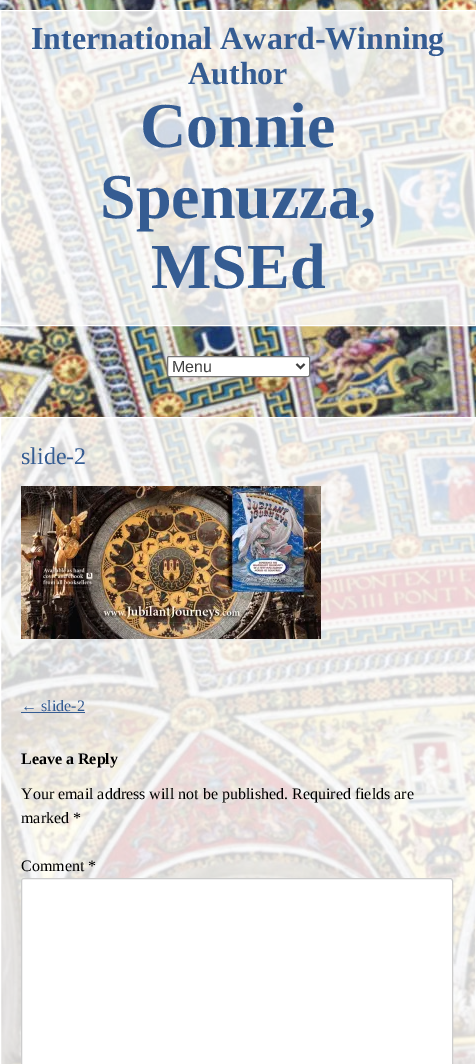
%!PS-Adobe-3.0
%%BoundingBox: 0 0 476 1064
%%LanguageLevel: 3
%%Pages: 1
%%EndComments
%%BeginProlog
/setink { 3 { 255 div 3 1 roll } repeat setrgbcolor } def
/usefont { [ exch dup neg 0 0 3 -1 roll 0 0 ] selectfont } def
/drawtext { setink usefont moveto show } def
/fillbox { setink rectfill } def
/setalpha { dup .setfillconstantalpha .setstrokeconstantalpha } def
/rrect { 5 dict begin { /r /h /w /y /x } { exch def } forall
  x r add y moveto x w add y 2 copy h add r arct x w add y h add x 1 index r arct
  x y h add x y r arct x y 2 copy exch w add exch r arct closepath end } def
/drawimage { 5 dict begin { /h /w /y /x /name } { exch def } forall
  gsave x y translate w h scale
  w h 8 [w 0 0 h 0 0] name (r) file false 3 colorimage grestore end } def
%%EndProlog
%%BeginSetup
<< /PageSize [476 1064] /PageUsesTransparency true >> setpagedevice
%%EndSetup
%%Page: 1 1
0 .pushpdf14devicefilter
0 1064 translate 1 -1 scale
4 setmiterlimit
0 0 476 1064 255 255 255 fillbox
(assets/img1.rgb) 0 0 476 1064 drawimage
0.8 setalpha
0.5 10.5 moveto 475.5 10.5 lineto 475.5 325.5 lineto 0.5 325.5 lineto closepath fill
1 setalpha
0.5 10.5 moveto 475.5 10.5 lineto 475.5 325.5 lineto 0.5 325.5 lineto closepath stroke
(International Award-Winning) 31 49 /LiberationSerif-Bold 32 53 92 146 drawtext
(Author) 188 84 /LiberationSerif-Bold 32 53 92 146 drawtext
(Connie) 140 147 /LiberationSerif-Bold 64 53 92 146 drawtext
(Spenuzza,) 100 218 /LiberationSerif-Bold 64 53 92 146 drawtext
(MSEd) 151 288 /LiberationSerif-Bold 64 53 92 146 drawtext
255 255 255 setink
167.5 356.5 142 20 1.5 rrect gsave fill grestore
118 118 118 setink
stroke
64 64 64 setink
2 setlinewidth
296.5 364 moveto 300.5 368 lineto 304.5 364 lineto stroke
(Menu) 172 372 /LiberationSans-Regular 16 64 64 64 drawtext
0.8 setalpha
255 255 255 setink
0.5 417.5 moveto 475.5 417.5 lineto 475.5 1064.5 lineto 0.5 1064.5 lineto closepath fill
1 setalpha
1 setlinewidth
0.5 417.5 moveto 475.5 417.5 lineto 475.5 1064.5 lineto 0.5 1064.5 lineto closepath stroke
(slide-2) 21 464 /LiberationSerif-Regular 24 53 92 146 drawtext
(assets/img2.rgb) 21 486 300 153 drawimage
(← slide-2) 21 711 /LiberationSerif-Regular 16 53 92 146 drawtext
21 712 64 1 53 92 146 fillbox
(Leave a Reply) 21 764 /LiberationSerif-Bold 16 0 0 0 drawtext
(Your email address will not be published. Required fields are) 21 799 /LiberationSerif-Regular 16 0 0 0 drawtext
(marked *) 21 823 /LiberationSerif-Regular 16 0 0 0 drawtext
(Comment *) 21 871 /LiberationSerif-Regular 16 0 0 0 drawtext
255 255 255 setink
21.5 878.5 431 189 2.5 rrect gsave fill grestore
204 204 204 setink
stroke
.poppdf14devicefilter showpage
%%EOF
